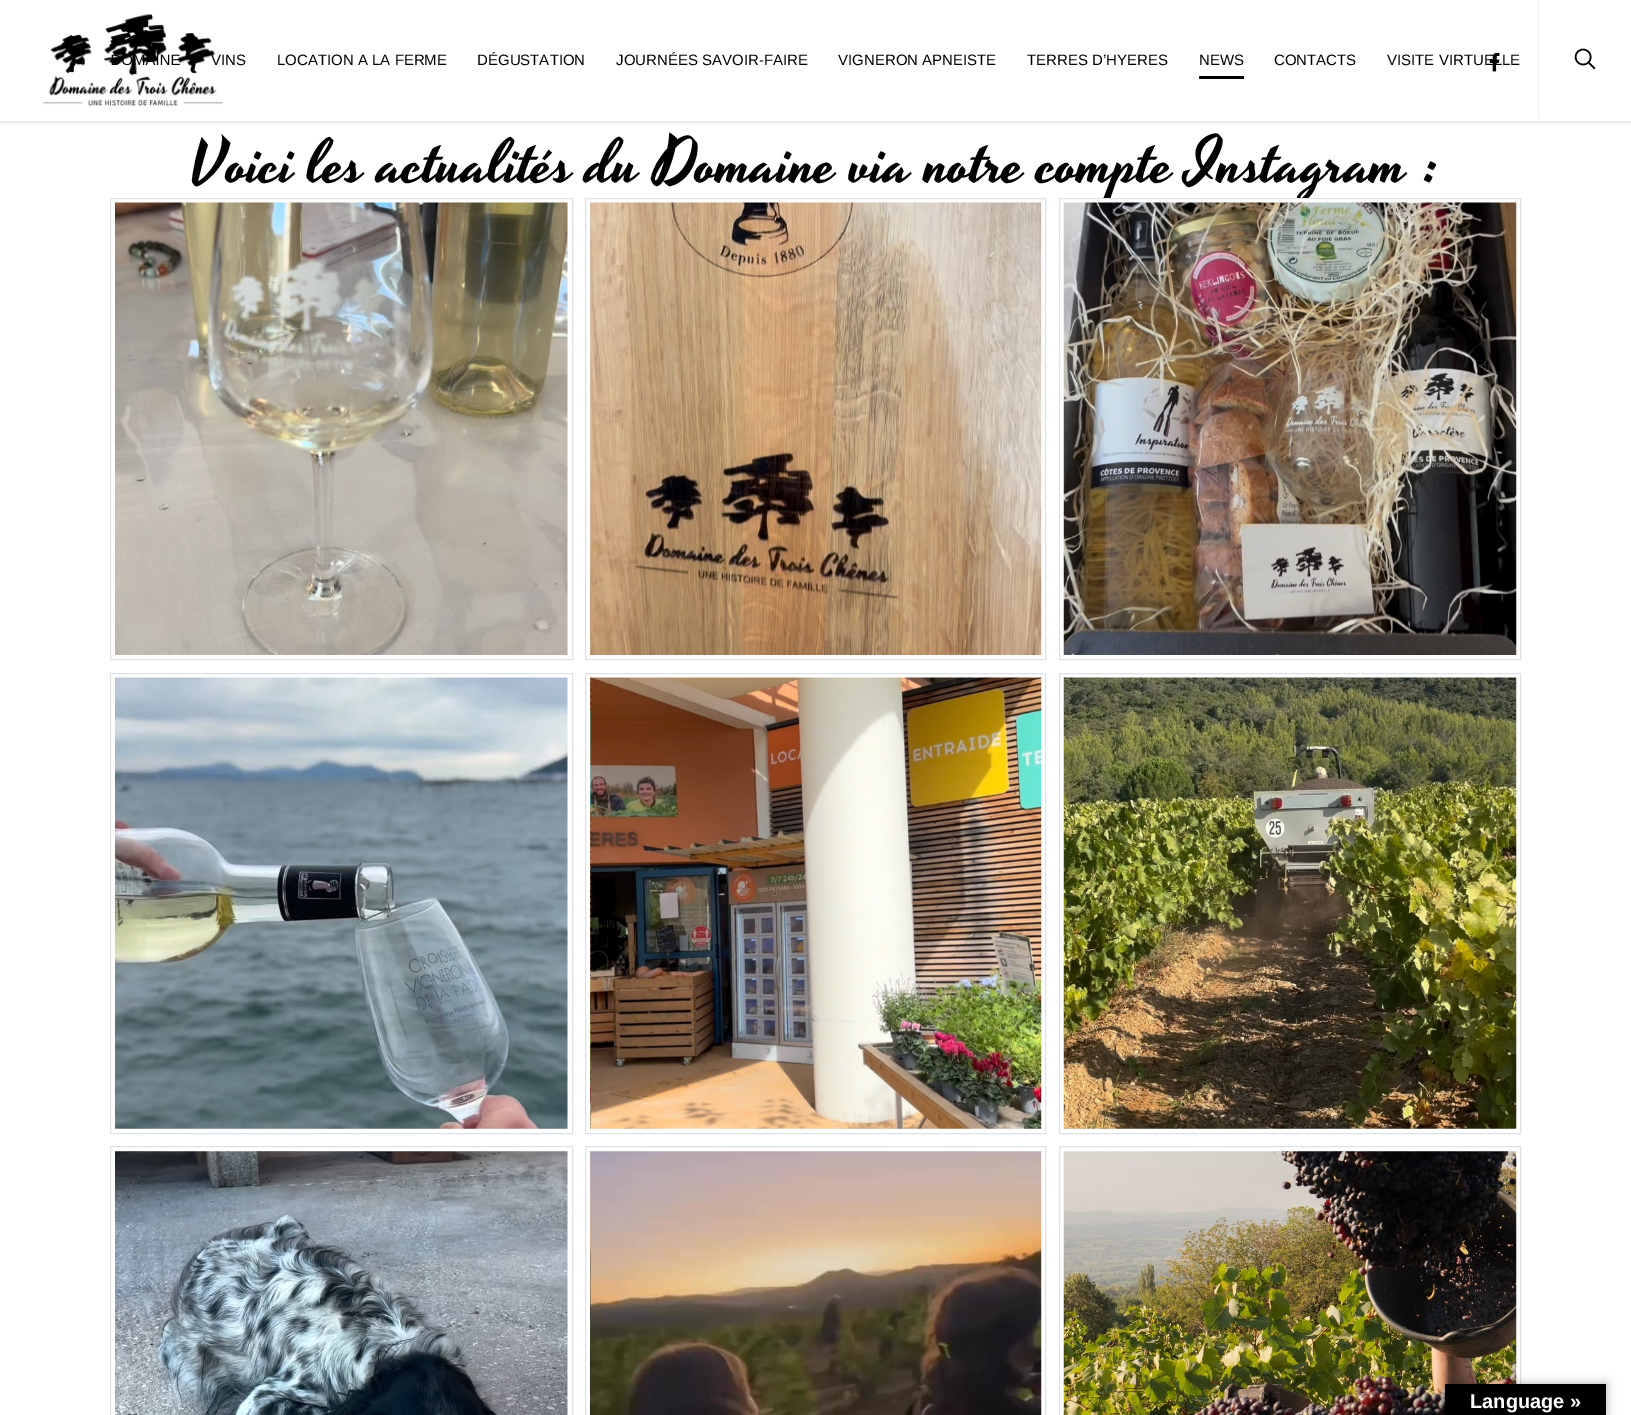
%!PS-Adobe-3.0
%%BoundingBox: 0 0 1631 1415
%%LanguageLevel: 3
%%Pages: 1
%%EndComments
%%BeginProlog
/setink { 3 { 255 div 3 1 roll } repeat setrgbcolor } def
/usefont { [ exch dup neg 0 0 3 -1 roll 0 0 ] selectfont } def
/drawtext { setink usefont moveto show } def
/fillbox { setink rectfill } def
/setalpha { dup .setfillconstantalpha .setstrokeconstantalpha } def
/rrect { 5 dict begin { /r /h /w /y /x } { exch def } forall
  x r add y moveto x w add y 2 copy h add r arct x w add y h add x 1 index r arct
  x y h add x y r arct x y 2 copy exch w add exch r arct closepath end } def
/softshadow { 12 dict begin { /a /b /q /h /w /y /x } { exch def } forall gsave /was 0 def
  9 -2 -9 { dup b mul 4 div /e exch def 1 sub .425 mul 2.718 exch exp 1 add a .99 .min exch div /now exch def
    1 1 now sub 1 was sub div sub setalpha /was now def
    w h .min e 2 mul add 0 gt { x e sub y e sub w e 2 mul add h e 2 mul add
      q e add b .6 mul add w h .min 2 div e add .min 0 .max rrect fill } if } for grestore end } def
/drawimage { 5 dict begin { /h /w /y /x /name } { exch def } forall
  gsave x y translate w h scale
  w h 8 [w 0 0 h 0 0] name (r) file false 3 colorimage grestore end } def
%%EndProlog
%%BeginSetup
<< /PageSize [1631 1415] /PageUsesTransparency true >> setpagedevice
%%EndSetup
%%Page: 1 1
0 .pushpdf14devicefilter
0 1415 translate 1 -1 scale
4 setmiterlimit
0 0 1631 1415 255 255 255 fillbox
0 0 0 setink
0 0 1631 121 0 2 0.22 softshadow
0 0 1631 121 255 255 255 fillbox
(DOMAINE) 110 65 /LiberationSans-Regular 15 0 0 0 drawtext
(VINS) 211 65 /LiberationSans-Regular 15 0 0 0 drawtext
(assets/img1.rgb) 42 14 181 93 drawimage
(LOCATION A LA FERME) 277 65 /LiberationSans-Regular 15 0 0 0 drawtext
(DÉGUSTATION) 477 65 /LiberationSans-Regular 15 0 0 0 drawtext
(JOURNÉES SAVOIR-FAIRE) 616 65 /LiberationSans-Regular 15 0 0 0 drawtext
(VIGNERON APNEISTE) 838 65 /LiberationSans-Regular 15 0 0 0 drawtext
(TERRES D’HYERES) 1027 65 /LiberationSans-Regular 15 0 0 0 drawtext
(NEWS) 1199 65 /LiberationSans-Regular 15 0 0 0 drawtext
1199 76 45 3 0 0 0 fillbox
(CONTACTS) 1274 65 /LiberationSans-Regular 15 0 0 0 drawtext
(VISITE VIRTUELLE) 1387 65 /LiberationSans-Regular 15 0 0 0 drawtext
(assets/img2.rgb) 1489 52 11 20 drawimage
1538 0 1 118 237 237 237 fillbox
(assets/img3.rgb) 1574 48 22 22 drawimage
(Voici les actualités du Domaine via notre compte Instagram :) 190 181 /Yesteryear-Regular 62.5 0 0 0 drawtext
222 226 230 setink
110.5 198.5 462 461 rectstroke
(assets/img4.rgb) 115 202 453 453 drawimage
585.5 198.5 460 461 rectstroke
(assets/img5.rgb) 590 202 452 453 drawimage
1102 199 205 4 255 255 255 fillbox
222 226 230 setink
1059.5 198.5 461 461 rectstroke
(assets/img6.rgb) 1063 202 454 453 drawimage
110.5 673.5 462 460 rectstroke
(assets/img7.rgb) 115 677 453 452 drawimage
585.5 673.5 460 460 rectstroke
(assets/img8.rgb) 590 677 452 452 drawimage
1059.5 673.5 461 460 rectstroke
(assets/img9.rgb) 1063 677 454 452 drawimage
110.5 1146.5 462 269 rectstroke
(assets/img10.rgb) 115 1151 453 264 drawimage
585.5 1146.5 460 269 rectstroke
(assets/img11.rgb) 590 1151 452 264 drawimage
1059.5 1146.5 461 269 rectstroke
(assets/img12.rgb) 1063 1151 454 264 drawimage
0 0 0 setink
1445 1384 161 31 0 5.5 0.3 softshadow
1445 1384 161 31 0 0 0 fillbox
(Language ») 1470 1408 /LiberationSans-Bold 20 255 255 255 drawtext
.poppdf14devicefilter showpage
%%EOF
